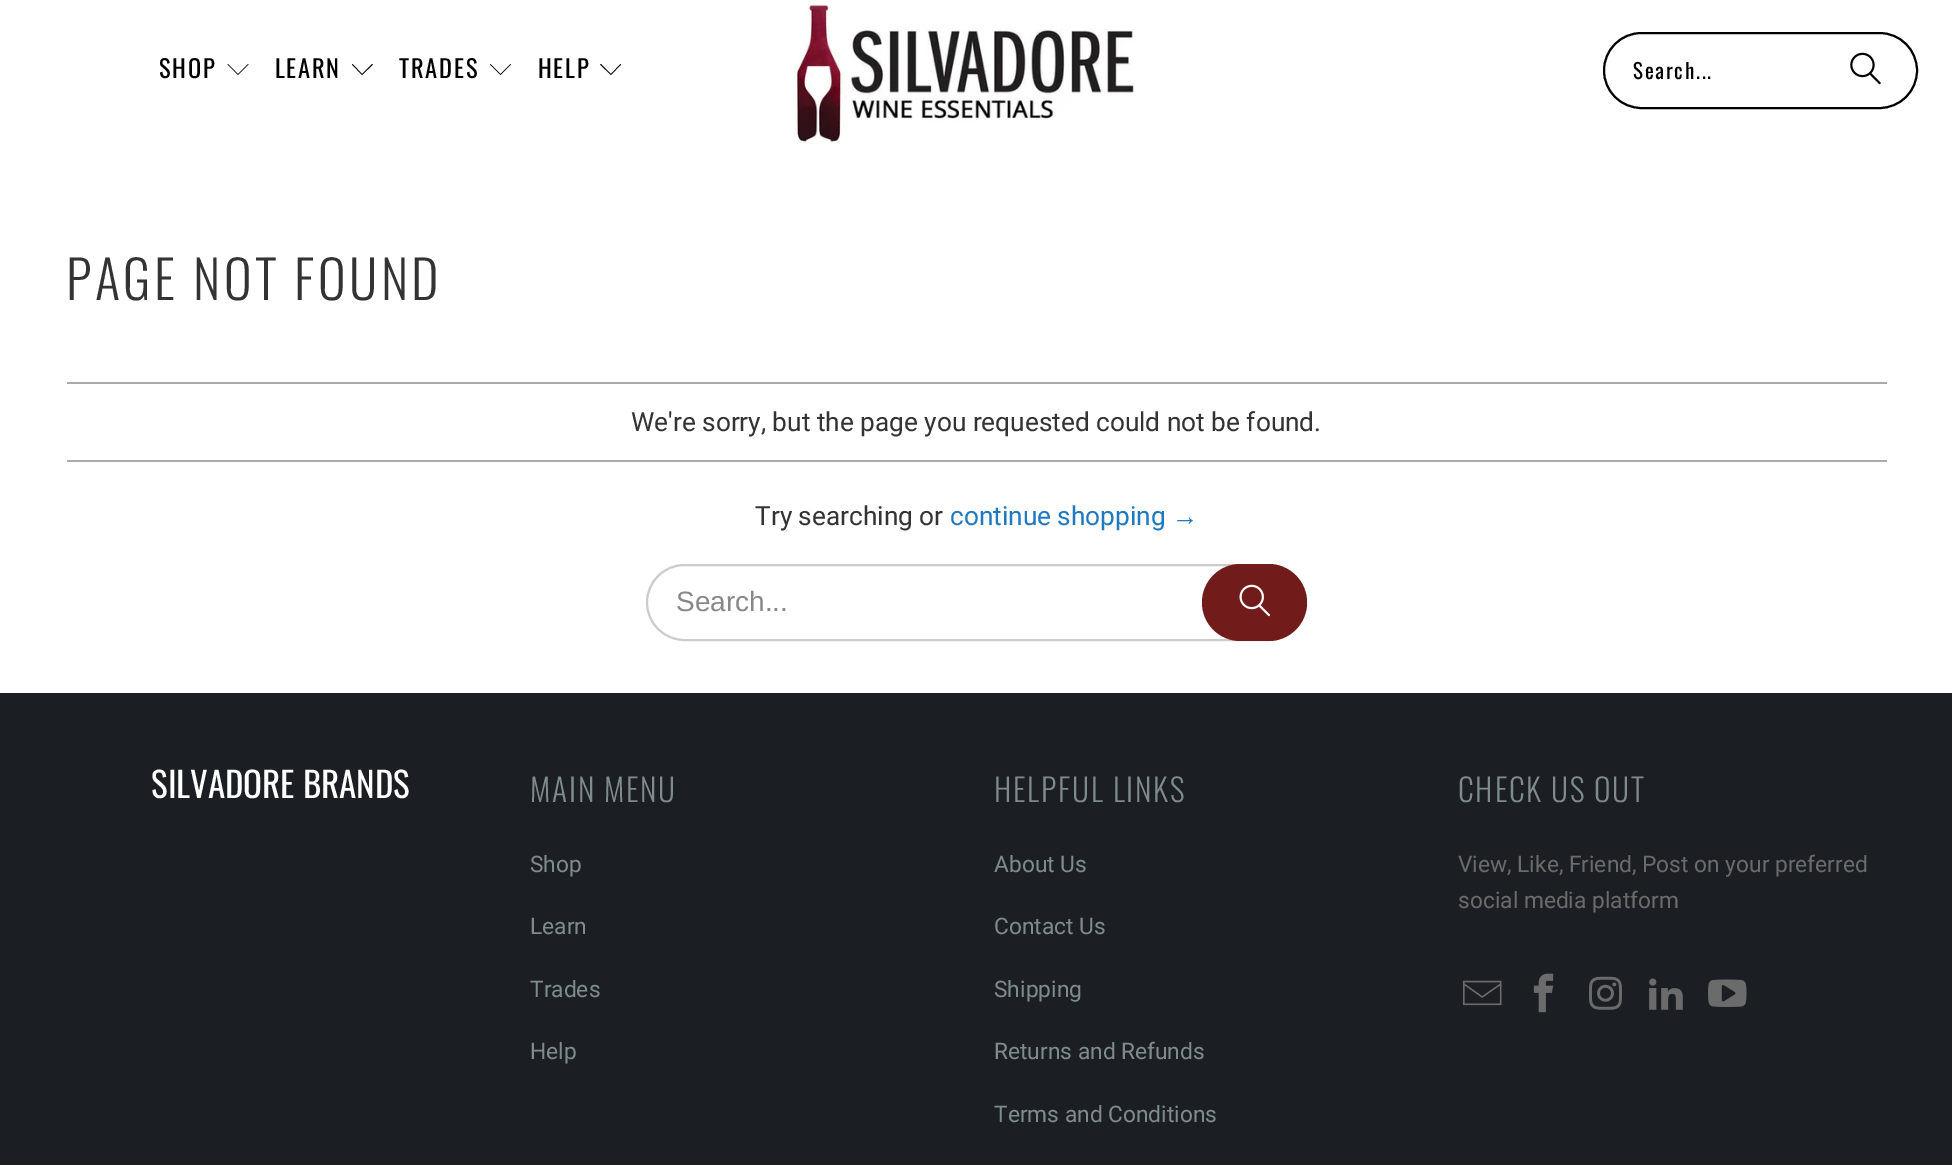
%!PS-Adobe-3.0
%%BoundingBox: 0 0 1952 1165
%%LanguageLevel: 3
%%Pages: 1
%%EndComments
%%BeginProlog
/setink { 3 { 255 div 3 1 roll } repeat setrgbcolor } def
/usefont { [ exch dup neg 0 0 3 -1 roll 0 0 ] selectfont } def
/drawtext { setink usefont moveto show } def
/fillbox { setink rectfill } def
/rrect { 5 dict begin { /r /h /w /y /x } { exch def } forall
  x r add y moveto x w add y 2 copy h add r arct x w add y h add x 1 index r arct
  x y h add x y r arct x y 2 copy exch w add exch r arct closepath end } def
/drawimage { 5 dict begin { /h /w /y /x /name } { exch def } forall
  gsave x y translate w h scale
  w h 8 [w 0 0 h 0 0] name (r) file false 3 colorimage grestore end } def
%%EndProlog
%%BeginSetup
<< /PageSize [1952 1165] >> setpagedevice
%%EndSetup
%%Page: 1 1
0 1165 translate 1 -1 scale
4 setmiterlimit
0 0 1952 1165 255 255 255 fillbox
/Oswald-Regular 24.5 usefont
0 0 0 setink
159 78 moveto 1.75 0 (SHOP) ashow
238 75 moveto 227.5 64.5 lineto 228 64 lineto 238 74 lineto 248 64 lineto 248.5 64.5 lineto closepath fill
275 78 moveto 1.75 0 (LEARN) ashow
362 75 moveto 352 64.5 lineto 352.5 64 lineto 362 74 lineto 372 64 lineto 373 64.5 lineto closepath fill
399 78 moveto 1.75 0 (TRADES) ashow
500.5 75 moveto 490 64.5 lineto 490.5 64 lineto 500.5 74 lineto 510.5 64 lineto 511 64.5 lineto closepath fill
538 78 moveto 1.75 0 (HELP) ashow
611 75 moveto 600 64.5 lineto 601 64 lineto 611 74 lineto 620.5 64 lineto 621 64.5 lineto closepath fill
(assets/img1.rgb) 794 3 341 141 drawimage
2 setlinewidth
1604 33 313 75 37.5 rrect stroke
/Oswald-Regular 21 usefont
1633 79 moveto 1.75 0 (Search...) ashow
(assets/img2.rgb) 1850 52 31 33 drawimage
/Oswald-Light 52.5 usefont
51 51 51 setink
66 300 moveto 3.5 0 (PAGE NOT FOUND) ashow
67 382 1820 2 170 170 170 fillbox
67 460 1820 2 170 170 170 fillbox
(We're sorry, but the page you requested could not be found.) 631 431 /Roboto-Regular 26.25 51 51 51 drawtext
(Try searching or) 755 525 /Roboto-Regular 26.25 51 51 51 drawtext
(continue shopping) 950 525 /Roboto-Regular 26.25 31 121 193 drawtext
(→) 1172 525 /LiberationSans-Regular 26.25 31 121 193 drawtext
204 204 204 setink
647 565 659 75 37.5 rrect stroke
(Search...) 676 611 /LiberationSans-Regular 28 136 136 136 drawtext
113 27 27 setink
1202 564 105 77 38.5 rrect fill
(assets/img3.rgb) 1239 584 31 33 drawimage
0 693 1952 472 27 31 35 fillbox
(SILVADORE BRANDS) 151 798 /Oswald-Regular 35 255 255 255 drawtext
/Oswald-Light 31.5 usefont
127 140 141 setink
530 802 moveto 1.75 0 (MAIN MENU) ashow
(Shop) 530 872 /Roboto-Regular 22.75 127 140 141 drawtext
(Learn) 530 934 /Roboto-Regular 22.75 127 140 141 drawtext
(Trades) 530 997 /Roboto-Regular 22.75 127 140 141 drawtext
(Help) 530 1059 /Roboto-Regular 22.75 127 140 141 drawtext
/Oswald-Light 31.5 usefont
994 802 moveto 1.75 0 (HELPFUL LINKS) ashow
(About Us) 994 872 /Roboto-Regular 22.75 127 140 141 drawtext
(Contact Us) 994 934 /Roboto-Regular 22.75 127 140 141 drawtext
(Shipping) 994 997 /Roboto-Regular 22.75 127 140 141 drawtext
(Returns and Refunds) 994 1059 /Roboto-Regular 22.75 127 140 141 drawtext
(Terms and Conditions) 994 1122 /Roboto-Regular 22.75 127 140 141 drawtext
/Oswald-Light 31.5 usefont
1458 802 moveto 1.75 0 (CHECK US OUT) ashow
(View, Like, Friend, Post on your preferred) 1458 872 /Roboto-Regular 22.75 107 107 107 drawtext
(social media platform) 1458 908 /Roboto-Regular 22.75 107 107 107 drawtext
(assets/img4.rgb) 1463 980 39 26 drawimage
(assets/img5.rgb) 1533 973 21 40 drawimage
(assets/img6.rgb) 1589 976 33 34 drawimage
(assets/img7.rgb) 1649 978 34 32 drawimage
(assets/img8.rgb) 1708 979 39 28 drawimage
showpage
%%EOF
